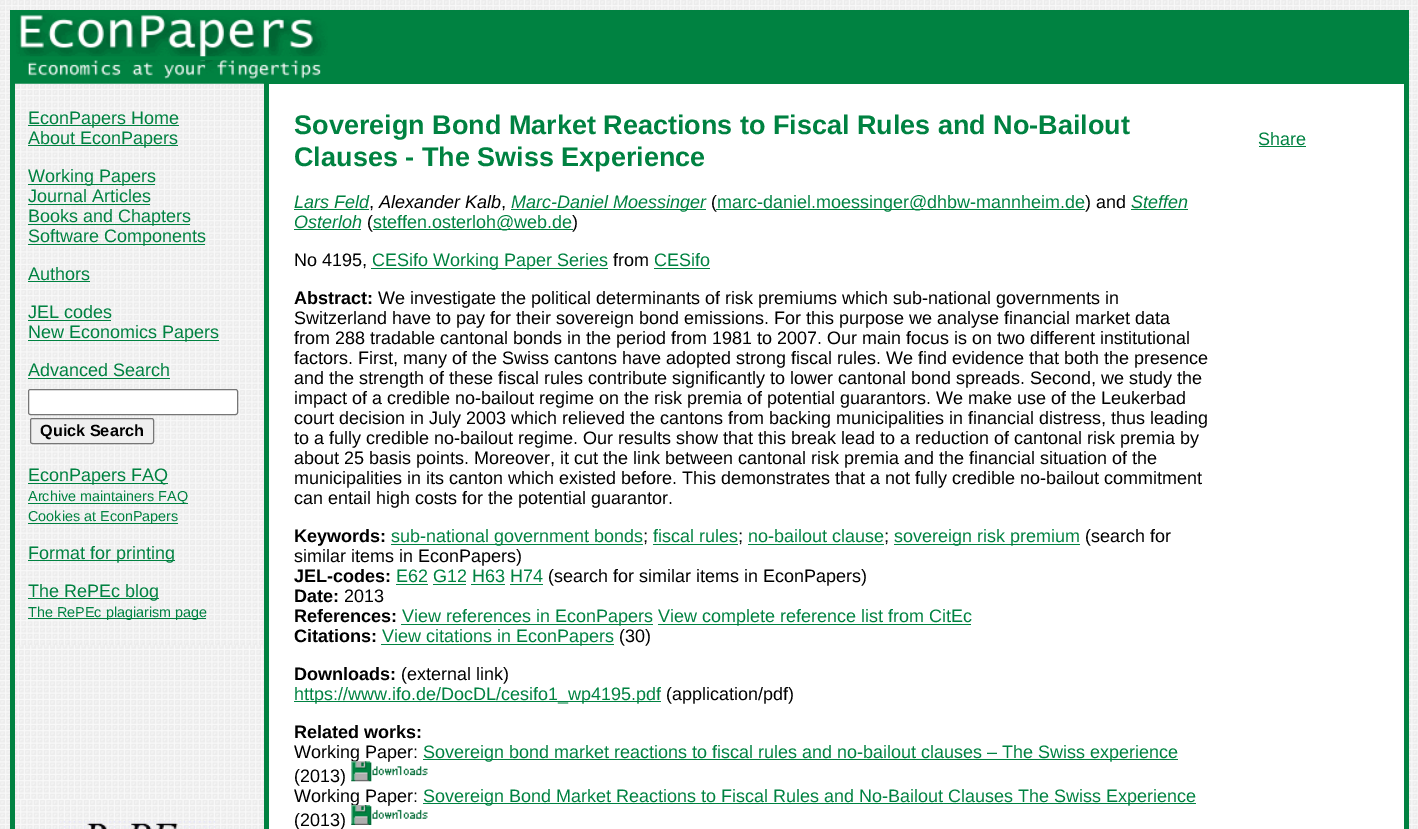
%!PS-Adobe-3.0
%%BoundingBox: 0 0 1418 829
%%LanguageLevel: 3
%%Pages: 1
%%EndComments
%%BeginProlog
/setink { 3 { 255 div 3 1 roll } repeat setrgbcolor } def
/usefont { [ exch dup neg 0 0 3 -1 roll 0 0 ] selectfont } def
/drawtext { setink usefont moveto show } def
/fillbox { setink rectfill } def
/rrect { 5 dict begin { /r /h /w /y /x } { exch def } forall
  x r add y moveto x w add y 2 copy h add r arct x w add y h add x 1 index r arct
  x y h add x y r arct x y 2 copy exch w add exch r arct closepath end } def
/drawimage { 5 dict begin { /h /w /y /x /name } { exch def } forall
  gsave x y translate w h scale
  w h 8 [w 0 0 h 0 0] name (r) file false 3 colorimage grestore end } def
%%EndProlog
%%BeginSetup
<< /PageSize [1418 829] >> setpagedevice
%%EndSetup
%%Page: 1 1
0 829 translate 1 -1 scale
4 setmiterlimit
0 0 1418 829 255 255 255 fillbox
(assets/img1.rgb) 0 0 1418 829 drawimage
10 10 5 819 0 130 65 fillbox
15 10 1389 50 0 130 65 fillbox
(assets/img2.rgb) 16 13 312 44 drawimage
1404 10 5 819 0 130 65 fillbox
15 60 1389 24 0 130 65 fillbox
(assets/img3.rgb) 23 60 298 19 drawimage
(assets/img4.rgb) 15 83 249 562 drawimage
28 125 151 1 0 130 65 fillbox
(EconPapers Home) 28 124 /LiberationSans-Regular 18 0 130 65 drawtext
28 145 150 1 0 130 65 fillbox
(About EconPapers) 28 144 /LiberationSans-Regular 18 0 130 65 drawtext
28 184 127 1 0 130 65 fillbox
(Working Papers) 28 182 /LiberationSans-Regular 18 0 130 65 drawtext
(Journal Articles) 28 202 /LiberationSans-Regular 18 0 130 65 drawtext
28 204 122 1 0 130 65 fillbox
28 224 162 1 0 130 65 fillbox
(Books and Chapters) 28 222 /LiberationSans-Regular 18 0 130 65 drawtext
28 244 177 1 0 130 65 fillbox
(Software Components) 28 242 /LiberationSans-Regular 18 0 130 65 drawtext
(Authors) 28 280 /LiberationSans-Regular 18 0 130 65 drawtext
28 281 62 1 0 130 65 fillbox
(JEL codes) 28 318 /LiberationSans-Regular 18 0 130 65 drawtext
28 320 83 1 0 130 65 fillbox
28 340 191 1 0 130 65 fillbox
(New Economics Papers) 28 338 /LiberationSans-Regular 18 0 130 65 drawtext
(Advanced Search) 28 376 /LiberationSans-Regular 18 0 130 65 drawtext
28 378 142 1 0 130 65 fillbox
255 255 255 setink
28.5 389.5 209 25 2 rrect gsave fill grestore
118 118 118 setink
stroke
239 239 239 setink
30.5 418.5 123 25 2 rrect gsave fill grestore
118 118 118 setink
stroke
(Quick Search) 40 436 /LiberationSans-Bold 16.25 0 0 0 drawtext
28 483 140 1 0 130 65 fillbox
(EconPapers FAQ) 28 481 /LiberationSans-Regular 18 0 130 65 drawtext
28 503 160 1 0 130 65 fillbox
(Archive maintainers FAQ) 28 501 /LiberationSans-Regular 14.4 0 130 65 drawtext
28 523 150 1 0 130 65 fillbox
(Cookies at EconPapers) 28 521 /LiberationSans-Regular 14.4 0 130 65 drawtext
28 560 147 1 0 130 65 fillbox
(Format for printing) 28 559 /LiberationSans-Regular 18 0 130 65 drawtext
28 598 131 1 0 130 65 fillbox
(The RePEc blog) 28 597 /LiberationSans-Regular 18 0 130 65 drawtext
28 618 178 1 0 130 65 fillbox
(The RePEc plagiarism page) 28 617 /LiberationSans-Regular 14.4 0 130 65 drawtext
264 84 5 745 0 130 65 fillbox
269 84 1135 745 255 255 255 fillbox
(Sovereign Bond Market Reactions to Fiscal Rules and No-Bailout) 294 134 /LiberationSans-Bold 27 0 130 65 drawtext
(Clauses - The Swiss Experience) 294 166 /LiberationSans-Bold 27 0 130 65 drawtext
(Lars Feld) 294 208 /LiberationSans-Italic 18 0 130 65 drawtext
294 209 75 1 0 130 65 fillbox
(,) 369 208 /LiberationSans-Regular 18 0 0 0 drawtext
(Alexander Kalb) 379 208 /LiberationSans-Italic 18 0 0 0 drawtext
(,) 501 208 /LiberationSans-Regular 18 0 0 0 drawtext
511 209 195 1 0 130 65 fillbox
(Marc-Daniel Moessinger) 511 208 /LiberationSans-Italic 18 0 130 65 drawtext
(\() 711 208 /LiberationSans-Regular 18 0 0 0 drawtext
716 209 369 1 0 130 65 fillbox
(marc-daniel.moessinger@dhbw-mannheim.de) 717 208 /LiberationSans-Regular 18 0 130 65 drawtext
(\) and) 1085 208 /LiberationSans-Regular 18 0 0 0 drawtext
(Steffen) 1131 208 /LiberationSans-Italic 18 0 130 65 drawtext
1131 209 57 1 0 130 65 fillbox
(Osterloh) 294 228 /LiberationSans-Italic 18 0 130 65 drawtext
294 229 67 1 0 130 65 fillbox
(\() 367 228 /LiberationSans-Regular 18 0 0 0 drawtext
373 229 200 1 0 130 65 fillbox
(steffen.osterloh@web.de) 373 228 /LiberationSans-Regular 18 0 130 65 drawtext
(\)) 572 228 /LiberationSans-Regular 18 0 0 0 drawtext
(No 4195,) 294 266 /LiberationSans-Regular 18 0 0 0 drawtext
371 268 237 1 0 130 65 fillbox
(CESifo Working Paper Series) 372 266 /LiberationSans-Regular 18 0 130 65 drawtext
(from) 613 266 /LiberationSans-Regular 18 0 0 0 drawtext
(CESifo) 654 266 /LiberationSans-Regular 18 0 130 65 drawtext
654 268 56 1 0 130 65 fillbox
(Abstract:) 294 304 /LiberationSans-Bold 18 0 0 0 drawtext
(We investigate the political determinants of risk premiums which sub-national governments in) 378 304 /LiberationSans-Regular 18 0 0 0 drawtext
(Switzerland have to pay for their sovereign bond emissions. For this purpose we analyse financial market data) 294 324 /LiberationSans-Regular 18 0 0 0 drawtext
(from 288 tradable cantonal bonds in the period from 1981 to 2007. Our main focus is on two different institutional) 294 344 /LiberationSans-Regular 18 0 0 0 drawtext
(factors. First, many of the Swiss cantons have adopted strong fiscal rules. We find evidence that both the presence) 294 364 /LiberationSans-Regular 18 0 0 0 drawtext
(and the strength of these fiscal rules contribute significantly to lower cantonal bond spreads. Second, we study the) 294 384 /LiberationSans-Regular 18 0 0 0 drawtext
(impact of a credible no-bailout regime on the risk premia of potential guarantors. We make use of the Leukerbad) 294 404 /LiberationSans-Regular 18 0 0 0 drawtext
(court decision in July 2003 which relieved the cantons from backing municipalities in financial distress, thus leading) 294 424 /LiberationSans-Regular 18 0 0 0 drawtext
(to a fully credible no-bailout regime. Our results show that this break lead to a reduction of cantonal risk premia by) 294 444 /LiberationSans-Regular 18 0 0 0 drawtext
(about 25 basis points. Moreover, it cut the link between cantonal risk premia and the financial situation of the) 294 464 /LiberationSans-Regular 18 0 0 0 drawtext
(municipalities in its canton which existed before. This demonstrates that a not fully credible no-bailout commitment) 294 484 /LiberationSans-Regular 18 0 0 0 drawtext
(can entail high costs for the potential guarantor.) 294 504 /LiberationSans-Regular 18 0 0 0 drawtext
(Keywords:) 294 542 /LiberationSans-Bold 18 0 0 0 drawtext
391 544 252 1 0 130 65 fillbox
(sub-national government bonds) 391 542 /LiberationSans-Regular 18 0 130 65 drawtext
(;) 643 542 /LiberationSans-Regular 18 0 0 0 drawtext
(fiscal rules) 653 542 /LiberationSans-Regular 18 0 130 65 drawtext
653 544 85 1 0 130 65 fillbox
(;) 738 542 /LiberationSans-Regular 18 0 0 0 drawtext
(no-bailout clause) 748 542 /LiberationSans-Regular 18 0 130 65 drawtext
748 544 136 1 0 130 65 fillbox
(;) 884 542 /LiberationSans-Regular 18 0 0 0 drawtext
894 544 186 1 0 130 65 fillbox
(sovereign risk premium) 894 542 /LiberationSans-Regular 18 0 130 65 drawtext
(\(search for) 1085 542 /LiberationSans-Regular 18 0 0 0 drawtext
(similar items in EconPapers\)) 294 562 /LiberationSans-Regular 18 0 0 0 drawtext
(JEL-codes:) 294 582 /LiberationSans-Bold 18 0 0 0 drawtext
(E62 G12 H63 H74) 396 582 /LiberationSans-Regular 18 0 130 65 drawtext
396 584 32 1 0 130 65 fillbox
(\(search for similar items in EconPapers\)) 548 582 /LiberationSans-Regular 18 0 0 0 drawtext
433 584 33 1 0 130 65 fillbox
471 584 34 1 0 130 65 fillbox
510 584 33 1 0 130 65 fillbox
(Date:) 294 602 /LiberationSans-Bold 18 0 0 0 drawtext
(2013) 344 602 /LiberationSans-Regular 18 0 0 0 drawtext
(References:) 294 622 /LiberationSans-Bold 18 0 0 0 drawtext
401 624 252 1 0 130 65 fillbox
(View references in EconPapers) 402 622 /LiberationSans-Regular 18 0 130 65 drawtext
658 624 313 1 0 130 65 fillbox
(View complete reference list from CitEc) 658 622 /LiberationSans-Regular 18 0 130 65 drawtext
(Citations:) 294 642 /LiberationSans-Bold 18 0 0 0 drawtext
381 644 233 1 0 130 65 fillbox
(View citations in EconPapers) 382 642 /LiberationSans-Regular 18 0 130 65 drawtext
(\(30\)) 619 642 /LiberationSans-Regular 18 0 0 0 drawtext
(Downloads:) 294 680 /LiberationSans-Bold 18 0 0 0 drawtext
(\(external link\)) 401 680 /LiberationSans-Regular 18 0 0 0 drawtext
294 701 367 1 0 130 65 fillbox
(https://www.ifo.de/DocDL/cesifo1_wp4195.pdf) 294 700 /LiberationSans-Regular 18 0 130 65 drawtext
(\(application/pdf\)) 666 700 /LiberationSans-Regular 18 0 0 0 drawtext
(Related works:) 294 738 /LiberationSans-Bold 18 0 0 0 drawtext
(Working Paper:) 294 758 /LiberationSans-Regular 18 0 0 0 drawtext
423 759 755 1 0 130 65 fillbox
(Sovereign bond market reactions to fiscal rules and no-bailout clauses – The Swiss experience) 423 758 /LiberationSans-Regular 18 0 130 65 drawtext
(\(2013\)) 294 782 /LiberationSans-Regular 18 0 0 0 drawtext
(assets/img5.rgb) 351 761 77 21 drawimage
(Working Paper:) 294 802 /LiberationSans-Regular 18 0 0 0 drawtext
423 803 773 1 0 130 65 fillbox
(Sovereign Bond Market Reactions to Fiscal Rules and No-Bailout Clauses The Swiss Experience) 423 802 /LiberationSans-Regular 18 0 130 65 drawtext
(\(2013\)) 294 826 /LiberationSans-Regular 18 0 0 0 drawtext
(assets/img6.rgb) 351 805 77 20 drawimage
(Share) 1258 145 /LiberationSans-Regular 18 0 130 65 drawtext
1259 146 47 1 0 130 65 fillbox
(assets/img7.rgb) 15 800 248 29 drawimage
(assets/img8.rgb) 60 821 155 8 drawimage
showpage
%%EOF
